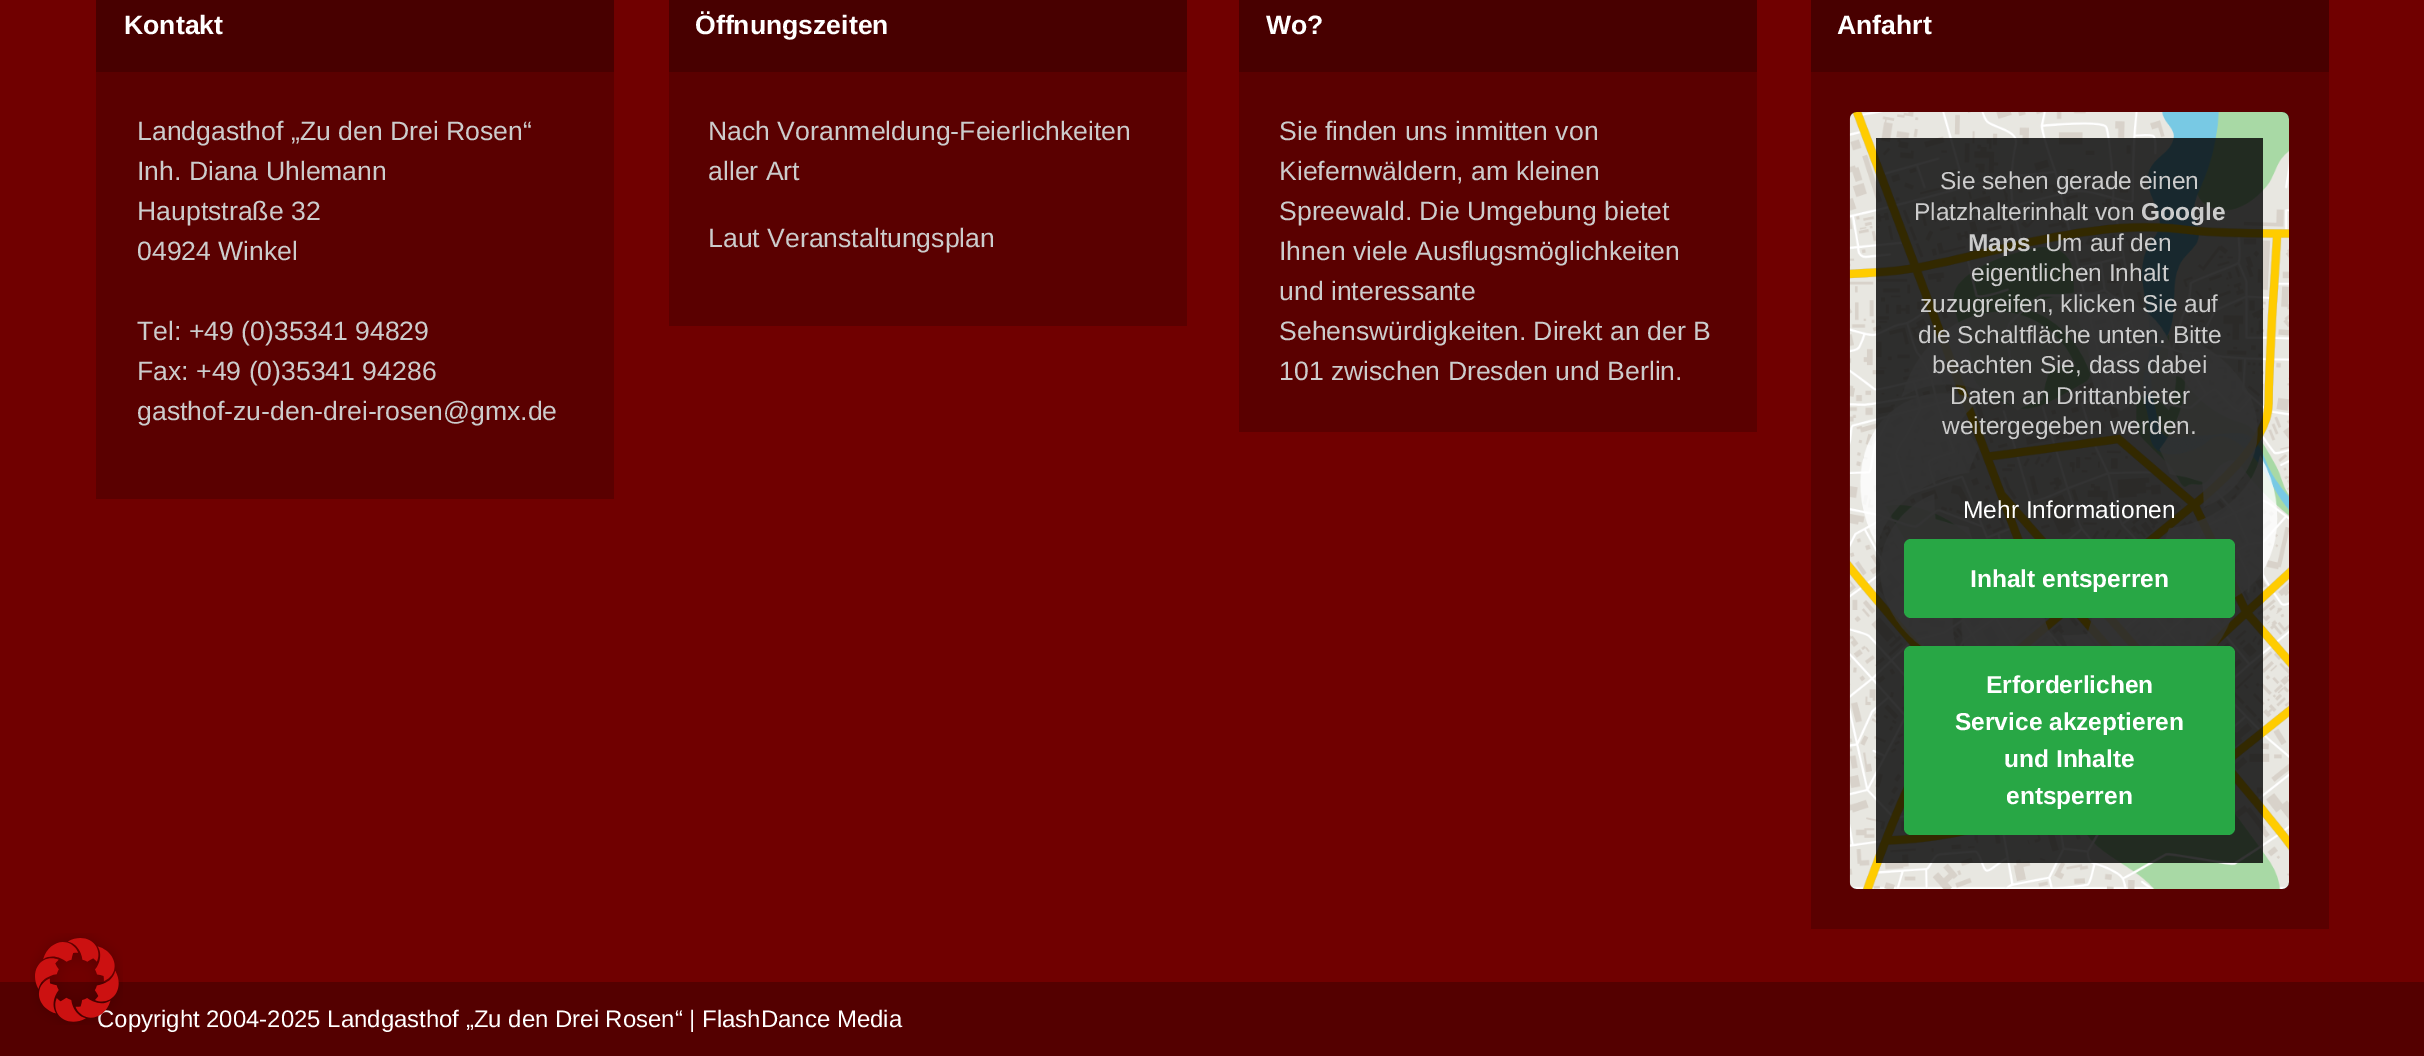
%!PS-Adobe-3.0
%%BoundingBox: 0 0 2424 1056
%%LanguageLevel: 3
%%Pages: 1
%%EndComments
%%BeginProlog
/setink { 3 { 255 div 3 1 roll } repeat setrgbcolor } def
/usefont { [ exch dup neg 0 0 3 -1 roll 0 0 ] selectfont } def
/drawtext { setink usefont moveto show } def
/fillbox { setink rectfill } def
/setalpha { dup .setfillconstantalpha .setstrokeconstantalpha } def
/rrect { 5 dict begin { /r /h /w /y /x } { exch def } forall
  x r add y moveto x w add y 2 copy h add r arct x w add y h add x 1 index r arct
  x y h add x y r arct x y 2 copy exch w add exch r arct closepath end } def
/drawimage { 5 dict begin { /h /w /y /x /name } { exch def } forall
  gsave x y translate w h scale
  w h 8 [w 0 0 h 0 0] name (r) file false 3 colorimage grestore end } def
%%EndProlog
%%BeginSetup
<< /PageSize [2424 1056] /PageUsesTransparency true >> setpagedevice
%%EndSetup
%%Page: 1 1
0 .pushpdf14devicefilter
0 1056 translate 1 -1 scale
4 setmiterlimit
0 0 2424 1056 112 0 0 fillbox
0 982 2424 74 84 0 0 fillbox
(Copyright 2004-2025 Landgasthof „Zu den Drei Rosen“ | FlashDance Media) 97 1027 /LiberationSans-Regular 23.95 255 255 255 drawtext
(assets/img1.rgb) 30 933 93 92 drawimage
96 72 518 427 90 0 0 fillbox
96 0 518 72 72 0 0 fillbox
(Kontakt) 124 34 /LiberationSans-Bold 26.6 255 255 255 drawtext
(Landgasthof „Zu den Drei Rosen“) 137 140 /LiberationSans-Regular 26.6 204 204 204 drawtext
(Inh. Diana Uhlemann) 137 180 /LiberationSans-Regular 26.6 204 204 204 drawtext
(Hauptstraße 32) 137 220 /LiberationSans-Regular 26.6 204 204 204 drawtext
(04924 Winkel) 137 260 /LiberationSans-Regular 26.6 204 204 204 drawtext
(Tel: +49 \(0\)35341 94829) 137 340 /LiberationSans-Regular 26.6 204 204 204 drawtext
(Fax: +49 \(0\)35341 94286) 137 380 /LiberationSans-Regular 26.6 204 204 204 drawtext
(gasthof-zu-den-drei-rosen@gmx.de) 137 420 /LiberationSans-Regular 26.6 204 204 204 drawtext
669 72 518 254 90 0 0 fillbox
669 0 518 72 72 0 0 fillbox
(Öffnungszeiten) 695 34 /LiberationSans-Bold 26.6 255 255 255 drawtext
(Nach Voranmeldung-Feierlichkeiten) 708 140 /LiberationSans-Regular 26.6 204 204 204 drawtext
(aller Art) 708 180 /LiberationSans-Regular 26.6 204 204 204 drawtext
(Laut Veranstaltungsplan) 708 247 /LiberationSans-Regular 26.6 204 204 204 drawtext
1239 72 518 360 90 0 0 fillbox
1239 0 518 72 72 0 0 fillbox
(Wo?) 1266 34 /LiberationSans-Bold 26.6 255 255 255 drawtext
(Sie finden uns inmitten von) 1279 140 /LiberationSans-Regular 26.6 204 204 204 drawtext
(Kiefernwäldern, am kleinen) 1279 180 /LiberationSans-Regular 26.6 204 204 204 drawtext
(Spreewald. Die Umgebung bietet) 1279 220 /LiberationSans-Regular 26.6 204 204 204 drawtext
(Ihnen viele Ausflugsmöglichkeiten) 1279 260 /LiberationSans-Regular 26.6 204 204 204 drawtext
(und interessante) 1279 300 /LiberationSans-Regular 26.6 204 204 204 drawtext
(Sehenswürdigkeiten. Direkt an der B) 1279 340 /LiberationSans-Regular 26.6 204 204 204 drawtext
(101 zwischen Dresden und Berlin.) 1279 380 /LiberationSans-Regular 26.6 204 204 204 drawtext
1811 72 518 857 90 0 0 fillbox
1811 0 518 72 72 0 0 fillbox
(Anfahrt) 1837 34 /LiberationSans-Bold 26.6 255 255 255 drawtext
(assets/img2.rgb) 1849 112 440 777 drawimage
0.8 setalpha
1876 138 387 725 0 0 0 fillbox
1 setalpha
(Sie sehen gerade einen) 1940 189 /LiberationSans-Regular 24.5 204 204 204 drawtext
(Platzhalterinhalt von) 1914 220 /LiberationSans-Regular 24.5 204 204 204 drawtext
(Google) 2141 220 /LiberationSans-Bold 24.5 204 204 204 drawtext
(Maps) 1968 251 /LiberationSans-Bold 24.5 204 204 204 drawtext
(. Um auf den) 2031 251 /LiberationSans-Regular 24.5 204 204 204 drawtext
(eigentlichen Inhalt) 1971 281 /LiberationSans-Regular 24.5 204 204 204 drawtext
(zuzugreifen, klicken Sie auf) 1920 312 /LiberationSans-Regular 24.5 204 204 204 drawtext
(die Schaltfläche unten. Bitte) 1918 343 /LiberationSans-Regular 24.5 204 204 204 drawtext
(beachten Sie, dass dabei) 1932 373 /LiberationSans-Regular 24.5 204 204 204 drawtext
(Daten an Drittanbieter) 1950 404 /LiberationSans-Regular 24.5 204 204 204 drawtext
(weitergegeben werden.) 1942 434 /LiberationSans-Regular 24.5 204 204 204 drawtext
(Mehr Informationen) 1963 518 /LiberationSans-Regular 24.5 255 255 255 drawtext
40 167 69 setink
1904 539 331 79 7 rrect fill
(Inhalt entsperren) 1970 587 /LiberationSans-Bold 24.5 255 255 255 drawtext
40 167 69 setink
1904 646 331 189 7 rrect fill
(Erforderlichen) 1986 693 /LiberationSans-Bold 24.5 255 255 255 drawtext
(Service akzeptieren) 1955 730 /LiberationSans-Bold 24.5 255 255 255 drawtext
(und Inhalte) 2004 767 /LiberationSans-Bold 24.5 255 255 255 drawtext
(entsperren) 2006 804 /LiberationSans-Bold 24.5 255 255 255 drawtext
.poppdf14devicefilter showpage
%%EOF
